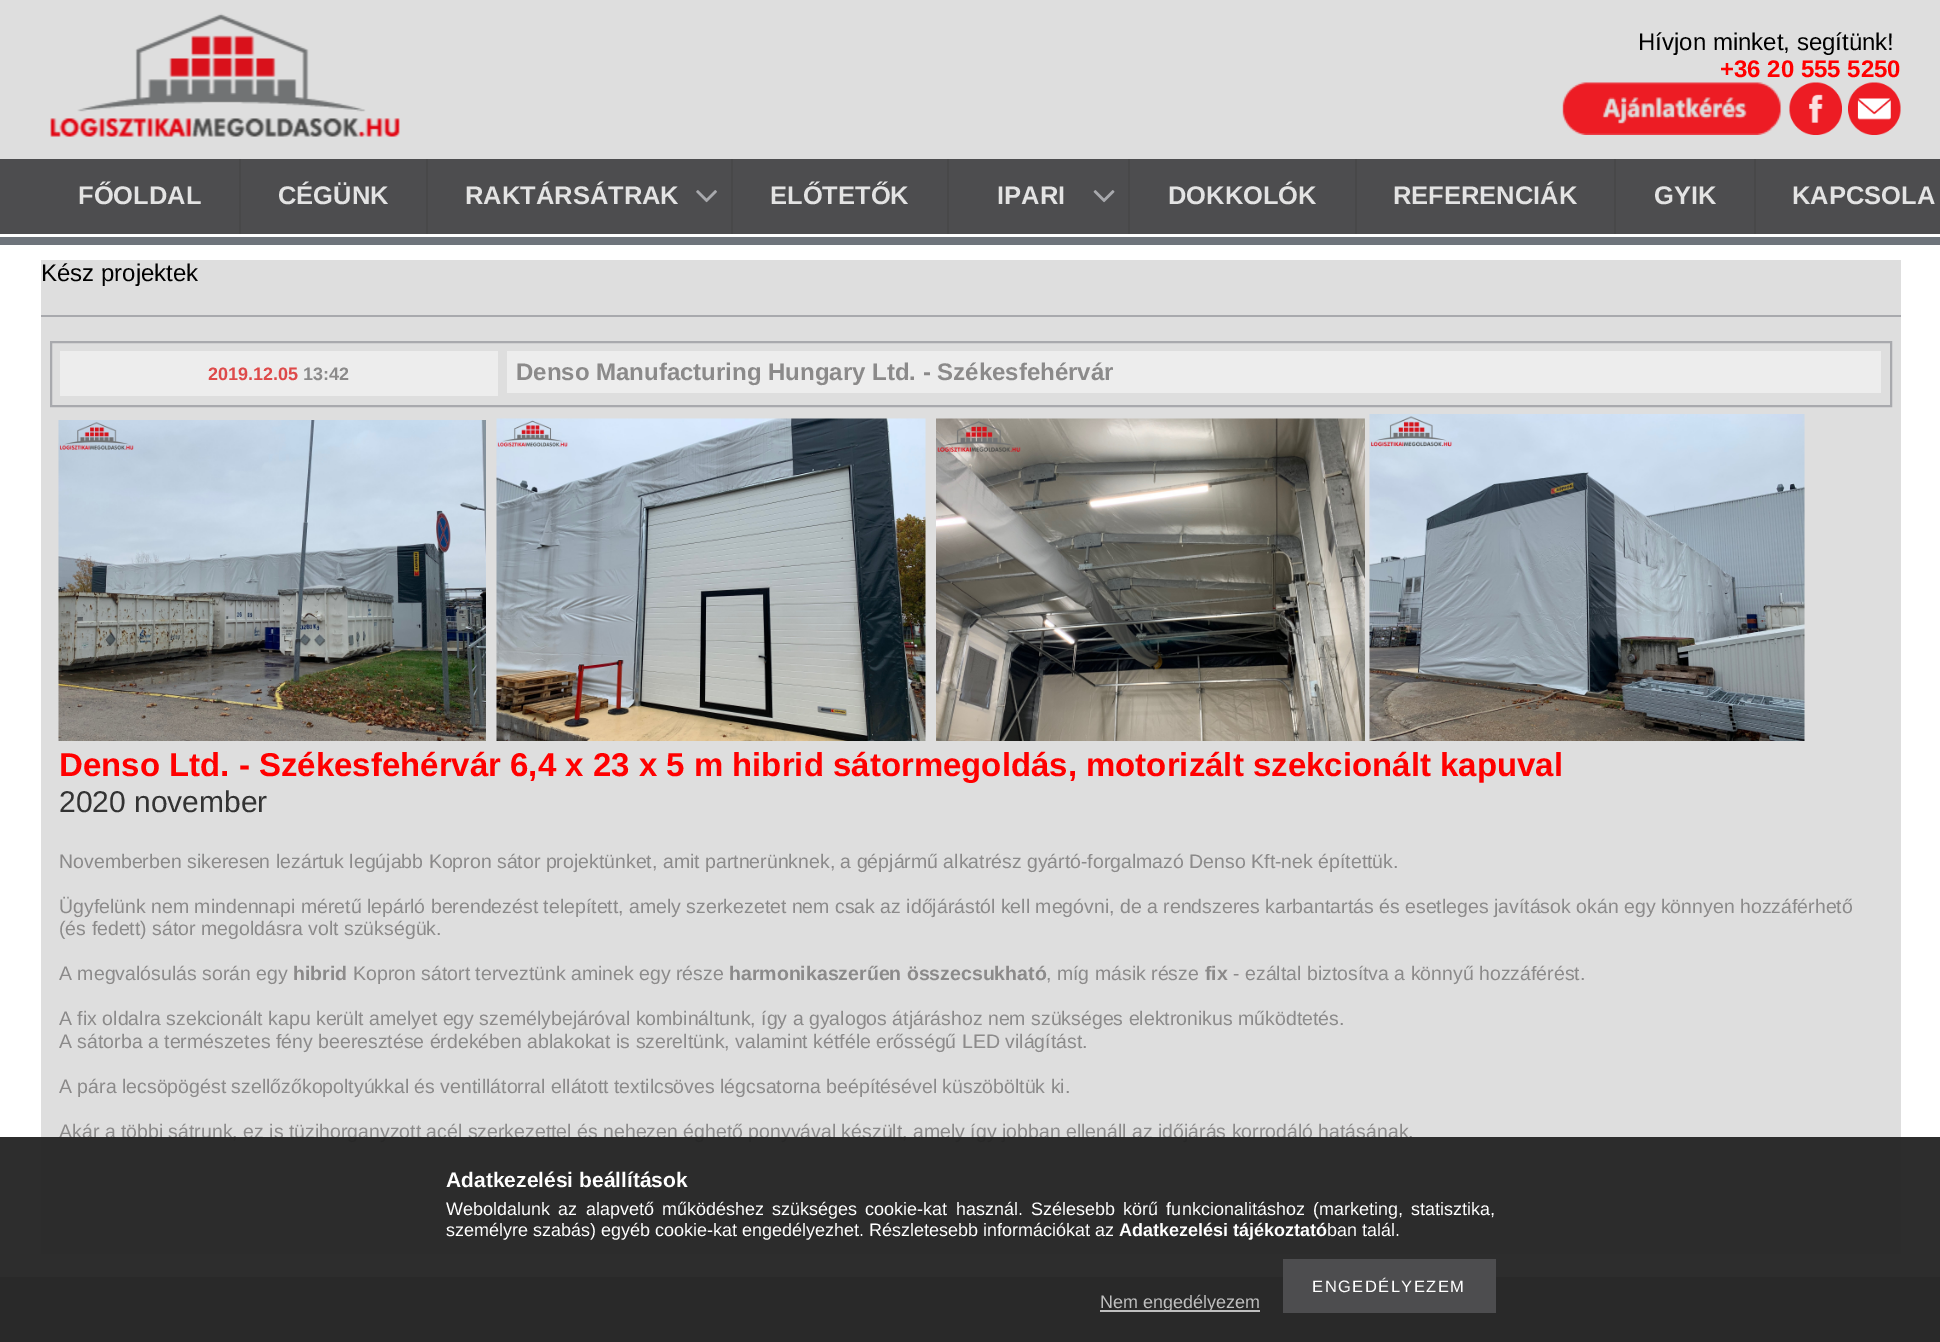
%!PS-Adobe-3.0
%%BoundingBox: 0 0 1940 1342
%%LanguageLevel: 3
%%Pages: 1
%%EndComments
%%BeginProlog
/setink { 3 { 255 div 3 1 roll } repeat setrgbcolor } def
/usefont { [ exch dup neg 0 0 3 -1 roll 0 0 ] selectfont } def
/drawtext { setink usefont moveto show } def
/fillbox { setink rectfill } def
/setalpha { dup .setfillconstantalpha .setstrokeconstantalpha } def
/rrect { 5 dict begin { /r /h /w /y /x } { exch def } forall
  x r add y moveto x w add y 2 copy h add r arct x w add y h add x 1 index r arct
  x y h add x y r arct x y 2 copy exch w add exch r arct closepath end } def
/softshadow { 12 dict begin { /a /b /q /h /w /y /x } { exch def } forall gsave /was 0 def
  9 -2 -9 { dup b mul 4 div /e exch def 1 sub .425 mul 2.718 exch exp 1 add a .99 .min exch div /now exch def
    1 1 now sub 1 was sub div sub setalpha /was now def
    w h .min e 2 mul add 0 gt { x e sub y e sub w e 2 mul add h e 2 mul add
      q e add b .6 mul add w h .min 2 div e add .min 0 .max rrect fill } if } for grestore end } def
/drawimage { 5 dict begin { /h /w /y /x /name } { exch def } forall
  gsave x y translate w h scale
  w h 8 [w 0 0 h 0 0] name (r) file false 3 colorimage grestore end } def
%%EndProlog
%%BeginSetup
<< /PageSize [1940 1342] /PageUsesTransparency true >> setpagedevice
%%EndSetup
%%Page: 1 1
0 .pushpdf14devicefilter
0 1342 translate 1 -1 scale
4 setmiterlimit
0 0 1940 1342 255 255 255 fillbox
0 0 1940 159 222 222 222 fillbox
(assets/img1.rgb) 50 13 350 124 drawimage
(Hívjon minket, segítünk!) 1638 50 /LiberationSans-Regular 24 0 0 0 drawtext
(+36 20 555 5250) 1720 77 /LiberationSans-Bold 24 255 0 0 drawtext
(assets/img2.rgb) 1562 82 220 53 drawimage
(assets/img3.rgb) 1789 82 53 53 drawimage
(assets/img4.rgb) 1848 82 53 53 drawimage
0 159 1940 75 77 77 79 fillbox
239 159 2 75 72 72 73 fillbox
(FŐOLDAL) 78 204 /LiberationSans-Bold 25.5 227 227 227 drawtext
426 159 2 75 72 72 73 fillbox
(CÉGÜNK) 278 204 /LiberationSans-Bold 25.5 227 227 227 drawtext
731 159 2 75 72 72 73 fillbox
(RAKTÁRSÁTRAK) 465 204 /LiberationSans-Bold 25.5 227 227 227 drawtext
(assets/img5.rgb) 696 190 21 13 drawimage
947 159 2 75 72 72 73 fillbox
(ELŐTETŐK) 770 204 /LiberationSans-Bold 25.5 227 227 227 drawtext
1128 159 2 75 72 72 73 fillbox
(IPARI) 997 204 /LiberationSans-Bold 25.5 227 227 227 drawtext
(assets/img6.rgb) 1093 190 22 13 drawimage
1355 159 2 75 72 72 73 fillbox
(DOKKOLÓK) 1168 204 /LiberationSans-Bold 25.5 227 227 227 drawtext
1614 159 2 75 72 72 73 fillbox
(REFERENCIÁK) 1393 204 /LiberationSans-Bold 25.5 227 227 227 drawtext
1754 159 2 75 72 72 73 fillbox
(GYIK) 1654 204 /LiberationSans-Bold 25.5 227 227 227 drawtext
(KAPCSOLA) 1792 204 /LiberationSans-Bold 25.5 227 227 227 drawtext
0 237 1940 8 110 116 123 fillbox
41 260 1860 994 222 222 222 fillbox
41 315 1860 2 168 169 173 fillbox
(Kész projektek) 41 281 /LiberationSans-Regular 24 0 0 0 drawtext
168 169 173 setink
2 setlinewidth
51 342 1840 64 rectstroke
60 351 438 45 237 237 237 fillbox
(2019.12.05) 208 380 /LiberationSans-Bold 18 222 74 74 drawtext
(13:42) 303 380 /LiberationSans-Bold 18 139 138 138 drawtext
507 351 1374 42 237 237 237 fillbox
(Denso Manufacturing Hungary Ltd. - Székesfehérvár) 516 380 /LiberationSans-Bold 24 139 138 138 drawtext
(assets/img7.rgb) 58 420 428 321 drawimage
(assets/img8.rgb) 496 418 430 323 drawimage
(assets/img9.rgb) 936 418 429 323 drawimage
(assets/img10.rgb) 1369 414 436 327 drawimage
(Denso Ltd. - Székesfehérvár 6,4 x 23 x 5 m hibrid sátormegoldás, motorizált szekcionált kapuval) 59 776 /LiberationSans-Bold 33 255 0 0 drawtext
(2020 november) 59 812 /LiberationSans-Regular 30 51 51 51 drawtext
(Novemberben sikeresen lezártuk legújabb Kopron sátor projektünket, amit partnerünknek, a gépjármű alkatrész gyártó-forgalmazó Denso Kft-nek építettük.) 59 868 /LiberationSans-Regular 19.5 139 138 138 drawtext
(Ügyfelünk nem mindennapi méretű lepárló berendezést telepített, amely szerkezetet nem csak az időjárástól kell megóvni, de a rendszeres karbantartás és esetleges javítások okán egy könnyen hozzáférhető) 59 913 /LiberationSans-Regular 19.5 139 138 138 drawtext
(\(és fedett\) sátor megoldásra volt szükségük.) 59 935 /LiberationSans-Regular 19.5 139 138 138 drawtext
(A megvalósulás során egy) 59 980 /LiberationSans-Regular 19.5 139 138 138 drawtext
(hibrid) 293 980 /LiberationSans-Bold 19.5 139 138 138 drawtext
(Kopron sátort terveztünk aminek egy része) 353 980 /LiberationSans-Regular 19.5 139 138 138 drawtext
(harmonikaszerűen összecsukható) 729 980 /LiberationSans-Bold 19.5 139 138 138 drawtext
(, míg másik része) 1046 980 /LiberationSans-Regular 19.5 139 138 138 drawtext
(fix) 1205 980 /LiberationSans-Bold 19.5 139 138 138 drawtext
(- ezáltal biztosítva a könnyű hozzáférést.) 1233 980 /LiberationSans-Regular 19.5 139 138 138 drawtext
(A fix oldalra szekcionált kapu került amelyet egy személybejáróval kombináltunk, így a gyalogos átjáráshoz nem szükséges elektronikus működtetés.) 59 1025 /LiberationSans-Regular 19.5 139 138 138 drawtext
(A sátorba a természetes fény beeresztése érdekében ablakokat is szereltünk, valamint kétféle erősségű LED világítást.) 59 1048 /LiberationSans-Regular 19.5 139 138 138 drawtext
(A pára lecsöpögést szellőzőkopoltyúkkal és ventillátorral ellátott textilcsöves légcsatorna beépítésével küszöböltük ki.) 59 1093 /LiberationSans-Regular 19.5 139 138 138 drawtext
(Akár a többi sátrunk, ez is tüzihorganyzott acél szerkezettel és nehezen éghető ponyvával készült, amely így jobban ellenáll az időjárás korrodáló hatásának.) 59 1138 /LiberationSans-Regular 19.5 139 138 138 drawtext
0 0 0 setink
0 1277 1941 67 0 4 0.1 softshadow
0 1277 1940 65 168 169 173 fillbox
0.95 setalpha
0 1137 1940 205 34 34 34 fillbox
1 setalpha
(Adatkezelési beállítások) 446 1187 /LiberationSans-Bold 21 255 255 255 drawtext
/LiberationSans-Regular 18 usefont
446 1215 moveto 3.25 0 32 (Weboldalunk az alapvető működéshez szükséges cookie-kat használ. Szélesebb körű funkcionalitáshoz \(marketing, statisztika,) widthshow
(személyre szabás\) egyéb cookie-kat engedélyezhet. Részletesebb információkat az) 446 1236 /LiberationSans-Regular 18 255 255 255 drawtext
(Adatkezelési tájékoztató) 1119 1236 /LiberationSans-Bold 18 255 255 255 drawtext
(ban talál.) 1327 1236 /LiberationSans-Regular 18 255 255 255 drawtext
1283 1259 213 54 77 77 79 fillbox
/LiberationSans-Regular 16.5 usefont
255 255 255 setink
1312 1292 moveto 1.5 0 (ENGEDÉLYEZEM) ashow
1100 1310 160 2 191 191 191 fillbox
(Nem engedélyezem) 1100 1308 /LiberationSans-Regular 18 191 191 191 drawtext
.poppdf14devicefilter showpage
%%EOF
